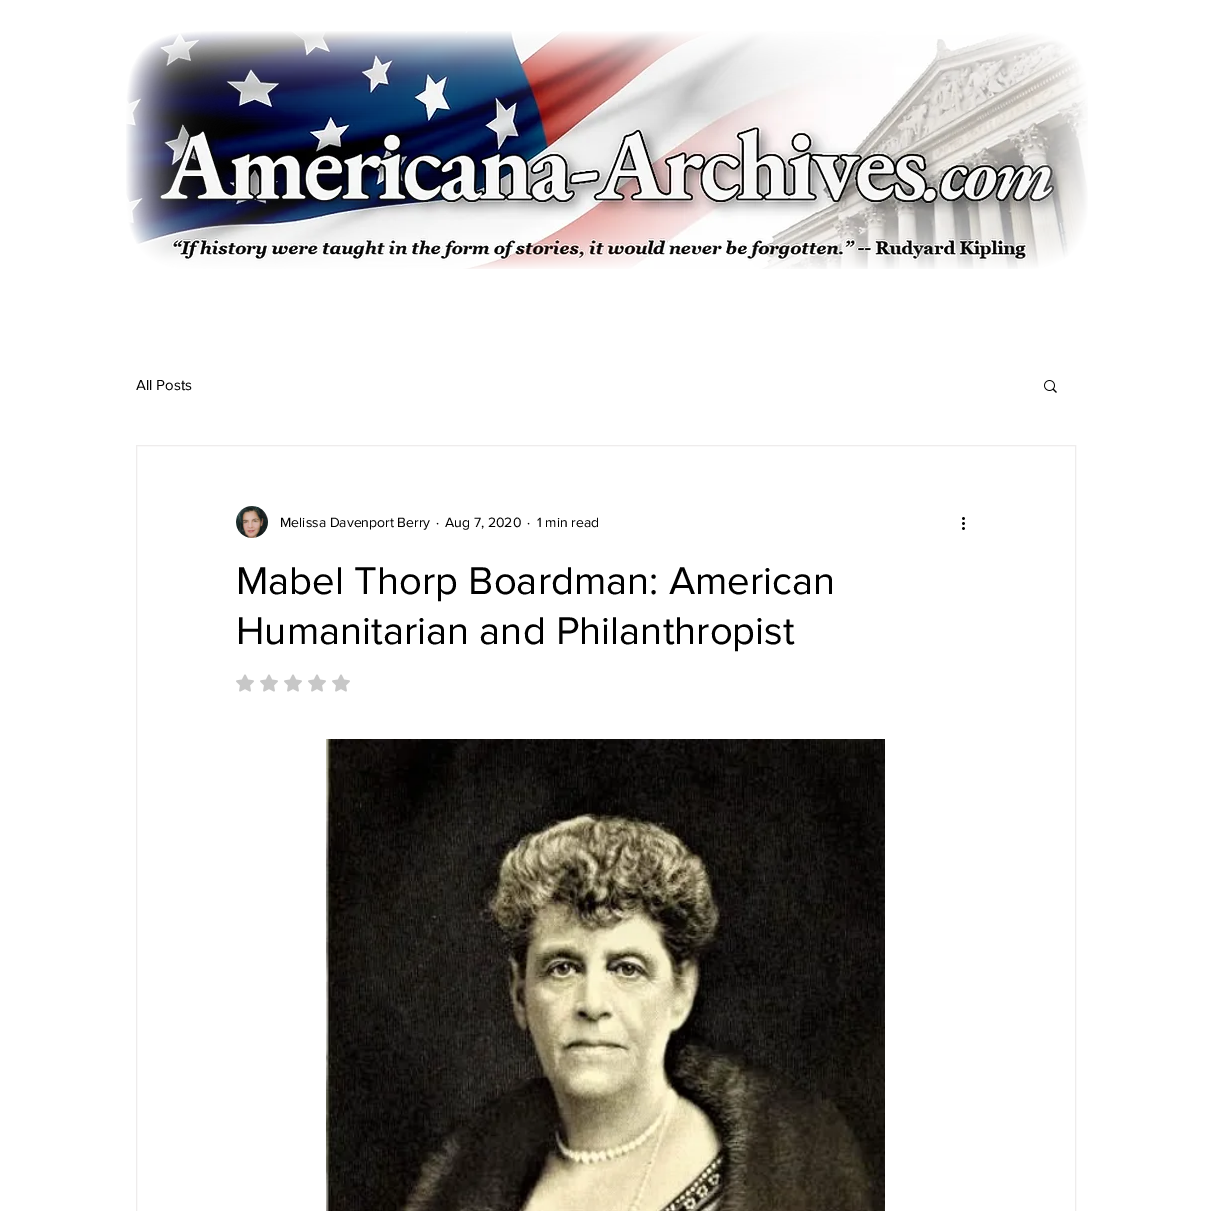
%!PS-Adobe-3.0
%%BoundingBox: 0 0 1211 1211
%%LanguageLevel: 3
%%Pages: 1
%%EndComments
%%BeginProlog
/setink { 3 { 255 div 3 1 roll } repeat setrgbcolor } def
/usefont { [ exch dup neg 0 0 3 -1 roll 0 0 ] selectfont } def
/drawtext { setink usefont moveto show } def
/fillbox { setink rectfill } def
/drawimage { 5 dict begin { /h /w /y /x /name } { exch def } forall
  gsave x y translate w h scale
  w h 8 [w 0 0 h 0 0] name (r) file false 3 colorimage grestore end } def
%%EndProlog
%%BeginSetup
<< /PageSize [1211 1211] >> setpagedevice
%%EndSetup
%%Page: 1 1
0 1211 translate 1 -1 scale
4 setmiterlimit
0 0 1211 1211 255 255 255 fillbox
(assets/img1.rgb) 126 31 962 238 drawimage
(All Posts) 136 390 /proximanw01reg-Regular 15 0 0 0 drawtext
(assets/img2.rgb) 1044 380 13 13 drawimage
238 236 236 setink
136.5 445.5 939 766 rectstroke
(assets/img3.rgb) 236 506 32 32 drawimage
(Melissa Davenport Berry) 280 527 /proximanw01reg-Regular 14 0 0 0 drawtext
(·) 436 527 /proximanw01reg-Regular 14 0 0 0 drawtext
(Aug 7, 2020) 445 527 /proximanw01reg-Regular 14 0 0 0 drawtext
(·) 527 527 /proximanw01reg-Regular 14 0 0 0 drawtext
(1 min read) 537 527 /proximanw01reg-Regular 14 0 0 0 drawtext
(assets/img4.rgb) 962 517 3 13 drawimage
(Mabel Thorp Boardman: American) 236 594 /proximanw01reg-Regular 40 0 0 0 drawtext
(Humanitarian and Philanthropist) 236 644 /proximanw01reg-Regular 40 0 0 0 drawtext
(assets/img5.rgb) 236 674 18 18 drawimage
(assets/img5.rgb) 260 674 18 18 drawimage
(assets/img5.rgb) 284 674 18 18 drawimage
(assets/img5.rgb) 308 674 18 18 drawimage
(assets/img5.rgb) 332 674 18 18 drawimage
(assets/img6.rgb) 326 739 559 472 drawimage
showpage
%%EOF
